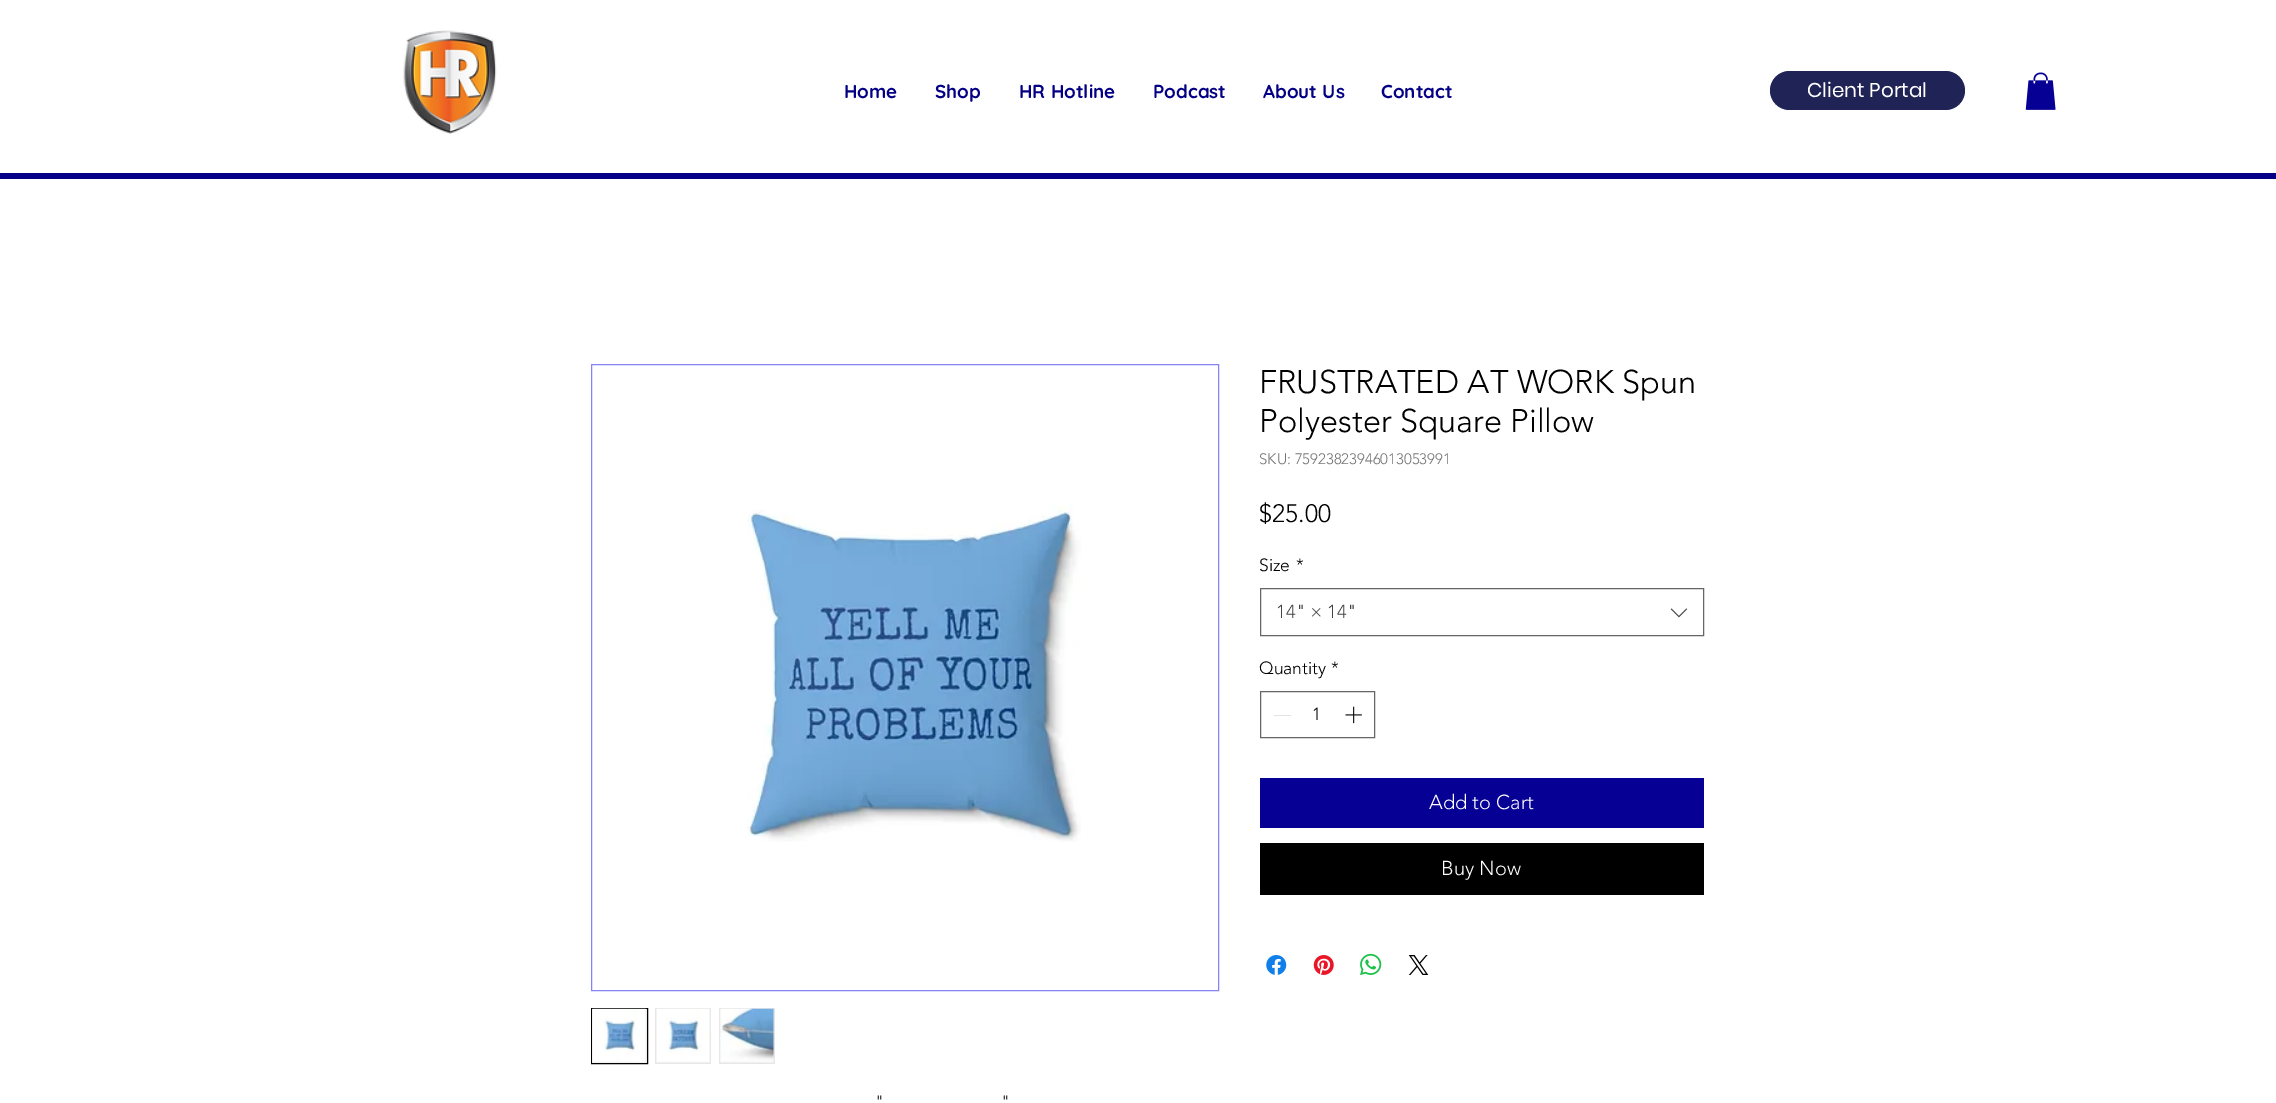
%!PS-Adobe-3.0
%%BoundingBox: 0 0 2276 1103
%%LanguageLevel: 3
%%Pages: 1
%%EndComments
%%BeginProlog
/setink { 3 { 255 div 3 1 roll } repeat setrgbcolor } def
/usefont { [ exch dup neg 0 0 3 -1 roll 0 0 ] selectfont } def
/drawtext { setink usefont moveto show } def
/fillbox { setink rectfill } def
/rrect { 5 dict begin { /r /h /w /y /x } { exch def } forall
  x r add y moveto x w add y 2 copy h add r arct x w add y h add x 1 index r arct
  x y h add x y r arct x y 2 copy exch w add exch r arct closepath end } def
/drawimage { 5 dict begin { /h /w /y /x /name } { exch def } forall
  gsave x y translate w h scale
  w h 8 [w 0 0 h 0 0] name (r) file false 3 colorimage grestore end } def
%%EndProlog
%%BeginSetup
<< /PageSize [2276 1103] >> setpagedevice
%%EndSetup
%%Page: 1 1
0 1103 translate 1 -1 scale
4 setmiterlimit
0 0 2276 1103 255 255 255 fillbox
(assets/img1.rgb) 403 30 94 104 drawimage
(Home) 844 98 /Quicksand-Bold 18.75 4 0 133 drawtext
(Shop) 935 98 /Quicksand-Bold 18.75 4 0 133 drawtext
(HR Hotline) 1019 98 /Quicksand-Bold 18.75 4 0 133 drawtext
(Podcast) 1153 98 /Quicksand-Bold 18.75 4 0 133 drawtext
(About Us) 1263 98 /Quicksand-Bold 18.75 4 0 133 drawtext
(Contact) 1381 98 /Quicksand-Bold 18.75 4 0 133 drawtext
32 35 86 setink
1770 71 195 39 19.5 rrect fill
(Client Portal) 1807 97 /Poppins-Regular 20 255 255 255 drawtext
(assets/img2.rgb) 2025 72 31 38 drawimage
0 173 2276 6 4 0 133 fillbox
(FRUSTRATED AT WORK Spun) 1259 393 /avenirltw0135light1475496-Light 32.5 0 0 0 drawtext
(Polyester Square Pillow) 1259 432 /avenirltw0135light1475496-Light 32.5 0 0 0 drawtext
(SKU: 75923823946013053991) 1259 464 /avenirltw0135light1475496-Light 15 117 117 117 drawtext
($25.00) 1259 522 /avenirltw0135light1475496-Light 25 0 0 0 drawtext
(Size) 1259 571 /avenirltw0135light1475496-Light 17.5 0 0 0 drawtext
(*) 1296 571 /avenirltw0135light1475496-Light 17.5 0 0 0 drawtext
102 102 102 setink
1260.5 588.5 443 47 rectstroke
(14" × 14") 1276 618 /avenirltw0135light1475496-Light 18.75 68 68 68 drawtext
(assets/img3.rgb) 1670 608 18 10 drawimage
(Quantity) 1259 674 /avenirltw0135light1475496-Light 17.5 0 0 0 drawtext
(*) 1331 674 /avenirltw0135light1475496-Light 17.5 0 0 0 drawtext
102 102 102 setink
1260.5 691.5 114 46 rectstroke
1274 715 17 1 227 227 227 fillbox
(1) 1312 720 /avenirltw0135light1475496-Light 17.5 0 0 0 drawtext
(assets/img4.rgb) 1345 706 17 18 drawimage
1260 778 444 50 7 0 148 fillbox
(Add to Cart) 1429 809 /avenirltw0135light1475496-Light 20 255 255 255 drawtext
1260 843 444 52 0 0 0 fillbox
(Buy Now) 1441 875 /avenirltw0135light1475496-Light 20 255 255 255 drawtext
(assets/img5.rgb) 1266 955 21 20 drawimage
(assets/img6.rgb) 1313 955 21 20 drawimage
(assets/img7.rgb) 1360 953 22 23 drawimage
(assets/img8.rgb) 1408 955 21 20 drawimage
135 130 246 setink
591.5 364.5 627 626 rectstroke
(assets/img9.rgb) 747 505 334 337 drawimage
232 230 230 setink
591.5 1008.5 moveto 647.5 1008.5 lineto 647.5 1063.5 lineto 591.5 1063.5 lineto closepath gsave fill grestore
0 0 0 setink
stroke
(assets/img10.rgb) 592 1008 55 55 drawimage
655 1008 56 56 232 230 230 fillbox
(assets/img11.rgb) 656 1008 54 55 drawimage
719 1008 56 56 232 230 230 fillbox
(assets/img12.rgb) 720 1008 55 55 drawimage
(") 875 1108 /avenirltw0135light1475496-Light 17.5 0 0 0 drawtext
(") 1001 1108 /avenirltw0135light1475496-Light 17.5 0 0 0 drawtext
showpage
%%EOF
